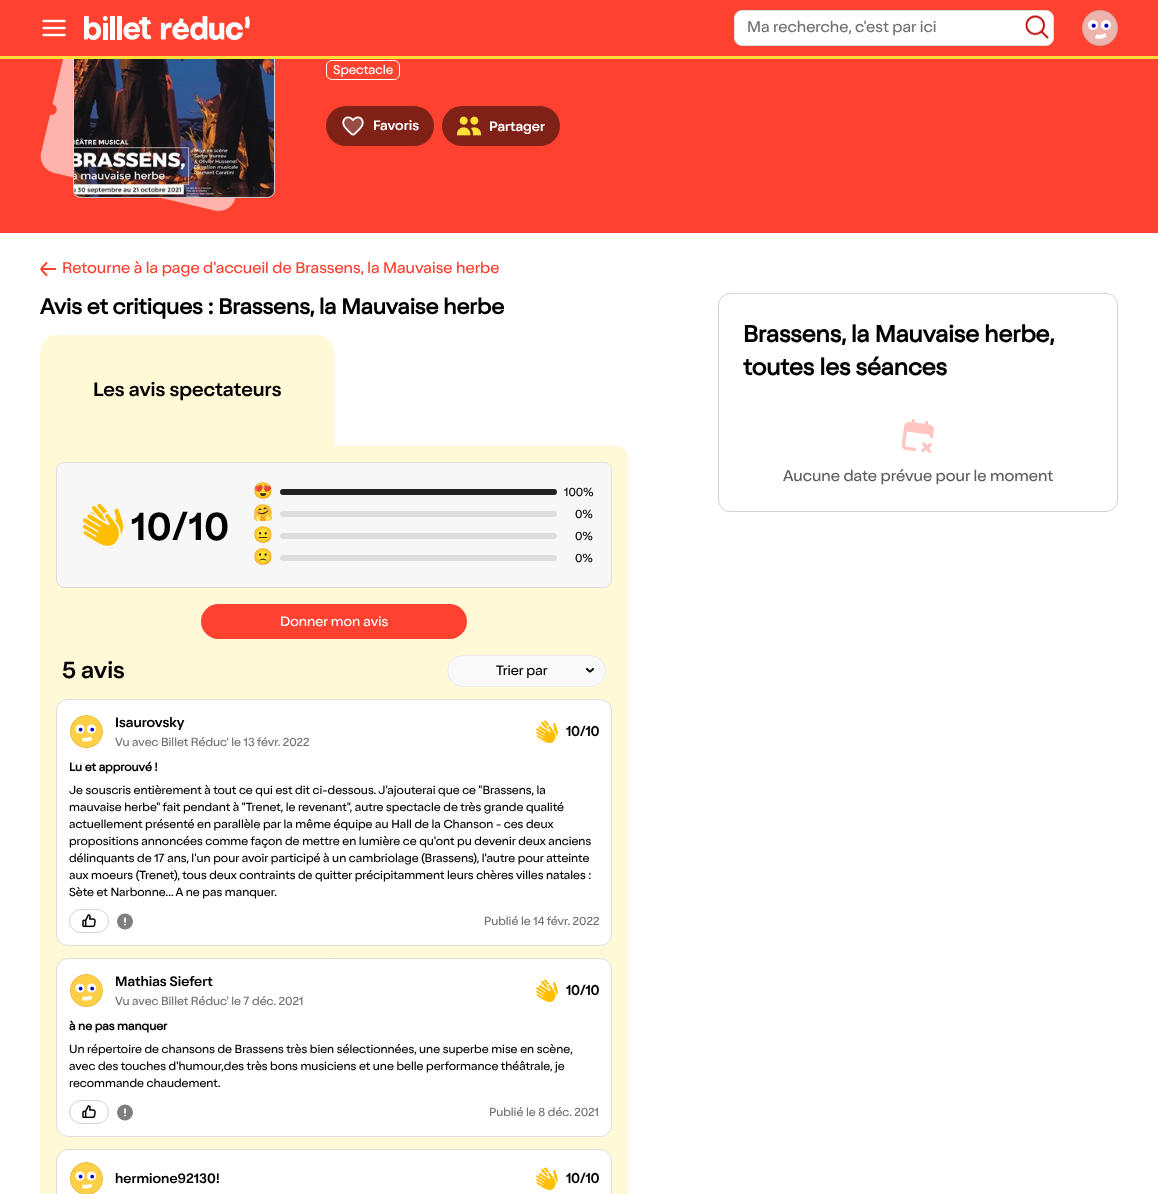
(async () => {
  const canvas = document.querySelector("canvas");
  canvas.width = 1158;
  canvas.height = 1194;
  const ctx = canvas.getContext("2d");
  ctx.miterLimit = 4;
  ctx.fontKerning = "normal";
  async function loadImage(src) {
    const img = new Image();
    img.src = src;
    await img.decode();
    return img;
  }
  let path;

  ctx.fillStyle = "#ffffff";
  ctx.fillRect(0, 0, 1158, 1194);
  ctx.fillStyle = "#ff4130";
  ctx.fillRect(0, 59, 1158, 174);
  ctx.drawImage(await loadImage("img/6.png"), 40, 59, 196, 152);
  ctx.fillStyle = "#ffffff";
  ctx.beginPath();
  ctx.roundRect(73, -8, 202, 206, 8);
  ctx.fill();
  ctx.beginPath();
  ctx.roundRect(73.5, -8.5, 201, 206, 7.5);
  ctx.strokeStyle = "rgba(0, 0, 0, 0.1)";
  ctx.stroke();
  ctx.fillStyle = "#ff4130";
  ctx.fillRect(0, 0, 1158, 56);
  ctx.fillStyle = "#ffe039";
  ctx.fillRect(0, 56, 1158, 3);
  ctx.drawImage(await loadImage("img/1.png"), 42, 19, 24, 18);
  ctx.drawImage(await loadImage("img/2.png"), 84, 16, 166, 24);
  ctx.fillStyle = "#ffffff";
  ctx.beginPath();
  ctx.roundRect(734.5, 10.5, 319, 35, 7.5);
  ctx.fill();
  ctx.strokeStyle = "#dddddd";
  ctx.stroke();
  ctx.drawImage(await loadImage("img/3.png"), 1025, 14, 24, 25);
  ctx.drawImage(await loadImage("img/4.png"), 1082, 10, 36, 36);
  ctx.drawImage(await loadImage("img/5.png"), 73, 59, 202, 139);
  ctx.beginPath();
  ctx.roundRect(326.5, 60.5, 73, 19, 5.5);
  ctx.strokeStyle = "#ffffff";
  ctx.stroke();
  ctx.fillStyle = "#802118";
  ctx.beginPath();
  ctx.roundRect(326, 106, 108, 40, 20);
  ctx.fill();
  ctx.drawImage(await loadImage("img/7.png"), 342, 116, 22, 20);
  ctx.beginPath();
  ctx.roundRect(442, 106, 118, 40, 20);
  ctx.fill();
  ctx.drawImage(await loadImage("img/8.png"), 457, 116, 24, 20);
  ctx.save();
  ctx.beginPath();
  ctx.rect(40, 262, 16, 15);
  ctx.clip();
  path = new Path2D("M46.5 263C39.5 270.5 39.5 267.5 46.5 275M42 269H57");
  ctx.strokeStyle = "#ff4130";
  ctx.lineWidth = 2;
  ctx.lineCap = "round";
  ctx.lineJoin = "round";
  ctx.stroke(path);
  ctx.restore();
  ctx.fillStyle = "#fff9d7";
  ctx.beginPath();
  ctx.roundRect(40, 335, 294, 111, [18, 18, 0, 0]);
  ctx.fill();
  path = new Path2D("M40 446H616C622.5 446 628 451.5 628 458V1194C628 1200.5 622.5 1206 616 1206H52C45.5 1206 40 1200.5 40 1194Z");
  ctx.fill(path);
  ctx.fillStyle = "#f7f7f7";
  ctx.beginPath();
  ctx.roundRect(56.5, 462.5, 555, 125, 7.5);
  ctx.fill();
  ctx.strokeStyle = "#dddddd";
  ctx.stroke();
  ctx.drawImage(await loadImage("img/9.png"), 82, 503, 42, 43);
  ctx.fillStyle = "#222222";
  ctx.beginPath();
  ctx.roundRect(280, 489, 277, 6, 3);
  ctx.fill();
  ctx.fillStyle = "#dddddd";
  ctx.beginPath();
  ctx.roundRect(280, 511, 277, 6, 3);
  ctx.fill();
  ctx.beginPath();
  ctx.roundRect(280, 533, 277, 6, 3);
  ctx.fill();
  ctx.beginPath();
  ctx.roundRect(280, 555, 277, 6, 3);
  ctx.fill();
  ctx.fillStyle = "#ff4130";
  ctx.beginPath();
  ctx.roundRect(201, 604, 266, 35, 17.5);
  ctx.fill();
  ctx.fillStyle = "#f9f9f9";
  ctx.beginPath();
  ctx.roundRect(447, 655, 159, 32, 16);
  ctx.fill();
  path = new Path2D("M587 669C590.5 672.5 589.5 672.5 593 669");
  ctx.strokeStyle = "#000000";
  ctx.lineWidth = 2;
  ctx.lineCap = "round";
  ctx.lineJoin = "round";
  ctx.stroke(path);
  ctx.beginPath();
  ctx.roundRect(447.5, 655.5, 158, 31, 15.5);
  ctx.strokeStyle = "#ebebeb";
  ctx.lineWidth = 1;
  ctx.lineJoin = "miter";
  ctx.stroke();
  ctx.fillStyle = "#ffffff";
  ctx.beginPath();
  ctx.roundRect(56.5, 699.5, 555, 246, 11.5);
  ctx.fill();
  ctx.strokeStyle = "#dddddd";
  ctx.stroke();
  ctx.drawImage(await loadImage("img/10.png"), 70, 715, 33, 33);
  ctx.drawImage(await loadImage("img/11.png"), 536, 720, 22, 23);
  ctx.beginPath();
  ctx.roundRect(69.5, 909.5, 39, 23, 11.5);
  ctx.strokeStyle = "#d3d3d3";
  ctx.stroke();
  ctx.drawImage(await loadImage("img/12.png"), 117, 913, 16, 17);
  ctx.drawImage(await loadImage("img/13.png"), 82, 914, 14, 14);
  ctx.beginPath();
  ctx.roundRect(56.5, 958.5, 555, 178, 11.5);
  ctx.fill();
  ctx.strokeStyle = "#dddddd";
  ctx.stroke();
  ctx.drawImage(await loadImage("img/10.png"), 70, 974, 33, 33);
  ctx.drawImage(await loadImage("img/11.png"), 536, 979, 22, 23);
  ctx.beginPath();
  ctx.roundRect(69.5, 1100.5, 39, 23, 11.5);
  ctx.strokeStyle = "#d3d3d3";
  ctx.stroke();
  ctx.drawImage(await loadImage("img/12.png"), 117, 1104, 16, 17);
  ctx.drawImage(await loadImage("img/13.png"), 82, 1105, 14, 14);
  ctx.beginPath();
  ctx.roundRect(56.5, 1149.5, 555, 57, 11.5);
  ctx.fill();
  ctx.strokeStyle = "#dddddd";
  ctx.stroke();
  ctx.drawImage(await loadImage("img/14.png"), 70, 1162, 33, 32);
  ctx.drawImage(await loadImage("img/11.png"), 536, 1167, 22, 23);
  ctx.beginPath();
  ctx.roundRect(718.5, 293.5, 399, 218, 11.5);
  ctx.strokeStyle = "#d3d3d3";
  ctx.stroke();
  ctx.drawImage(await loadImage("img/15.png"), 901, 419, 33, 34);
  ctx.font = "16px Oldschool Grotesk";
  ctx.fillStyle = "#717171";
  ctx.fillText("Ma recherche, c'est par ici", 747, 32);
  ctx.font = "13px Oldschool Grotesk";
  ctx.fillStyle = "#ffffff";
  ctx.fillText("Spectacle", 333, 74);
  ctx.font = "500 14px Oldschool Grotesk";
  ctx.fillText("Favoris", 373, 130);
  ctx.fillText("Partager", 489, 131);
  ctx.font = "16px Oldschool Grotesk";
  ctx.fillStyle = "#ff4130";
  ctx.fillText("Retourne à la page d'accueil de Brassens, la Mauvaise herbe", 62, 273);
  ctx.font = "bold 22.4px Oldschool Grotesk";
  ctx.fillStyle = "#000000";
  ctx.fillText("Avis et critiques : Brassens, la Mauvaise herbe", 40, 314);
  ctx.font = "500 20px Oldschool Grotesk";
  ctx.fillText("Les avis spectateurs", 93, 396);
  ctx.font = "500 40px Oldschool Grotesk";
  ctx.fillText("10/10", 131, 540);
  ctx.font = "16px Noto Color Emoji";
  ctx.fillText("😍", 253, 496);
  ctx.font = "12px Oldschool Grotesk";
  ctx.fillText("100%", 564, 496);
  ctx.font = "16px Noto Color Emoji";
  ctx.fillText("🤗", 253, 518);
  ctx.font = "12px Oldschool Grotesk";
  ctx.fillText("0%", 575, 518);
  ctx.font = "16px Noto Color Emoji";
  ctx.fillText("😐", 253, 540);
  ctx.font = "12px Oldschool Grotesk";
  ctx.fillText("0%", 575, 540);
  ctx.font = "16px Noto Color Emoji";
  ctx.fillText("🙁", 253, 562);
  ctx.font = "12px Oldschool Grotesk";
  ctx.fillText("0%", 575, 562);
  ctx.font = "14px Oldschool Grotesk";
  ctx.fillStyle = "#ffffff";
  ctx.fillText("Donner mon avis", 280, 626);
  ctx.font = "500 24px Oldschool Grotesk";
  ctx.fillStyle = "#000000";
  ctx.fillText("5 avis", 62, 678);
  ctx.font = "14px Oldschool Grotesk";
  ctx.fillText("Trier par", 496, 675);
  ctx.font = "500 14px Oldschool Grotesk";
  ctx.fillText("Isaurovsky", 115, 727);
  ctx.font = "12px Oldschool Grotesk";
  ctx.fillStyle = "#717171";
  ctx.fillText("Vu avec Billet Réduc' le 13 févr. 2022", 115, 746);
  ctx.font = "bold 14px Oldschool Grotesk";
  ctx.fillStyle = "#000000";
  ctx.fillText("10/10", 566, 736);
  ctx.font = "bold 12px Oldschool Grotesk";
  ctx.fillText("Lu et approuvé !", 69, 771);
  ctx.font = "12px Oldschool Grotesk";
  for (const [text, x, y] of [
    ["Je souscris entièrement à tout ce qui est dit ci-dessous. J'ajouterai que ce \"Brassens, la", 69, 794],
    ["mauvaise herbe\" fait pendant à \"Trenet, le revenant\", autre spectacle de très grande qualité", 69, 811],
    ["actuellement présenté en parallèle par la même équipe au Hall de la Chanson - ces deux", 69, 828],
    ["propositions annoncées comme façon de mettre en lumière ce qu'ont pu devenir deux anciens", 69, 845],
    ["délinquants de 17 ans, l'un pour avoir participé à un cambriolage (Brassens), l'autre pour atteinte", 69, 862],
    ["aux moeurs (Trenet), tous deux contraints de quitter précipitamment leurs chères villes natales :", 69, 879],
    ["Sète et Narbonne... A ne pas manquer.", 69, 896],
  ]) {
    ctx.fillText(text, x, y);
  }
  ctx.fillStyle = "#717171";
  ctx.fillText("Publié le 14 févr. 2022", 484, 925);
  ctx.font = "500 14px Oldschool Grotesk";
  ctx.fillStyle = "#000000";
  ctx.fillText("Mathias Siefert", 115, 986);
  ctx.font = "12px Oldschool Grotesk";
  ctx.fillStyle = "#717171";
  ctx.fillText("Vu avec Billet Réduc' le 7 déc. 2021", 115, 1005);
  ctx.font = "bold 14px Oldschool Grotesk";
  ctx.fillStyle = "#000000";
  ctx.fillText("10/10", 566, 995);
  ctx.font = "bold 12px Oldschool Grotesk";
  ctx.fillText("à ne pas manquer", 69, 1030);
  ctx.font = "12px Oldschool Grotesk";
  for (const [text, x, y] of [
    ["Un répertoire de chansons de Brassens très bien sélectionnées, une superbe mise en scène,", 69, 1053],
    ["avec des touches d'humour,des très bons musiciens et une belle performance théâtrale, je", 69, 1070],
    ["recommande chaudement.", 69, 1087],
  ]) {
    ctx.fillText(text, x, y);
  }
  ctx.fillStyle = "#717171";
  ctx.fillText("Publié le 8 déc. 2021", 489, 1116);
  ctx.font = "500 14px Oldschool Grotesk";
  ctx.fillStyle = "#000000";
  ctx.fillText("hermione92130!", 115, 1183);
  ctx.font = "bold 14px Oldschool Grotesk";
  ctx.fillText("10/10", 566, 1183);
  ctx.font = "bold 24px Oldschool Grotesk";
  ctx.fillText("Brassens, la Mauvaise herbe,", 743, 342);
  ctx.fillText("toutes les séances", 743, 375);
  ctx.font = "16px Oldschool Grotesk";
  ctx.fillStyle = "#5e5e5e";
  ctx.fillText("Aucune date prévue pour le moment", 783, 481);
})();
